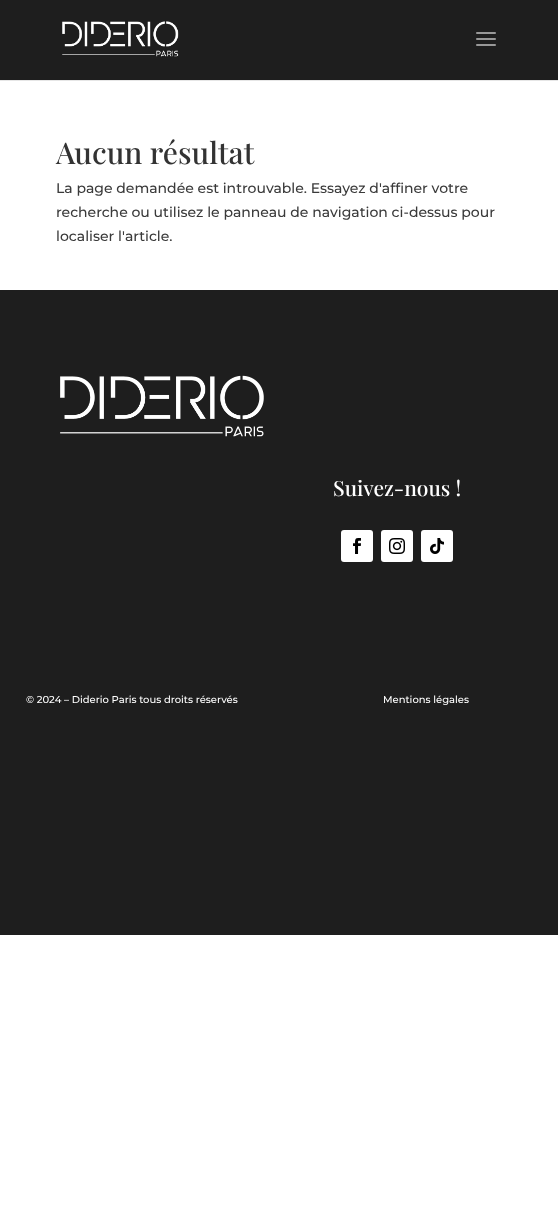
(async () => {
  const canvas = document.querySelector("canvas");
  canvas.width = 558;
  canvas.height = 1232;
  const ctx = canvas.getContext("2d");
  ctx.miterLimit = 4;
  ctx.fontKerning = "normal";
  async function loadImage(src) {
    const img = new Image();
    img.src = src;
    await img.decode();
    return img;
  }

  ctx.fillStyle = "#ffffff";
  ctx.fillRect(0, 0, 558, 1232);
  ctx.fillStyle = "#e6e6e6";
  ctx.fillRect(0, 80, 558, 1);
  ctx.fillStyle = "#1e1e1e";
  ctx.fillRect(0, 0, 558, 80);
  ctx.drawImage(await loadImage("img/1.png"), 62, 21, 117, 36);
  ctx.drawImage(await loadImage("img/2.png"), 476, 32, 20, 14);
  ctx.fillRect(0, 290, 558, 645);
  ctx.drawImage(await loadImage("img/3.png"), 60, 375, 204, 62);
  ctx.fillStyle = "#ffffff";
  ctx.beginPath();
  ctx.roundRect(341, 530, 32, 32, 3);
  ctx.fill();
  ctx.drawImage(await loadImage("img/4.png"), 353, 538, 8, 16);
  ctx.beginPath();
  ctx.roundRect(381, 530, 32, 32, 3);
  ctx.fill();
  ctx.drawImage(await loadImage("img/5.png"), 389, 538, 16, 16);
  ctx.beginPath();
  ctx.roundRect(421, 530, 32, 32, 3);
  ctx.fill();
  ctx.drawImage(await loadImage("img/6.png"), 430, 538, 14, 16);
  ctx.font = "500 30px Playfair Display";
  ctx.fillStyle = "#333333";
  ctx.fillText("Aucun résultat", 56, 164);
  ctx.font = "500 14px Montserrat";
  ctx.fillStyle = "#3a3a3a";
  for (const [text, x, y] of [
    ["La page demandée est introuvable. Essayez d'affiner votre", 56, 193],
    ["recherche ou utilisez le panneau de navigation ci-dessus pour", 56, 217],
    ["localiser l'article.", 56, 241],
  ]) {
    ctx.fillText(text, x, y);
  }
  ctx.font = "500 21px Playfair Display";
  ctx.fillStyle = "#ffffff";
  ctx.fillText("Suivez-nous !", 333, 496);
  ctx.font = "500 10px Montserrat";
  ctx.fillText("© 2024 – Diderio Paris tous droits réservés", 26, 703);
  ctx.fillText("Mentions légales", 383, 703);
})();
